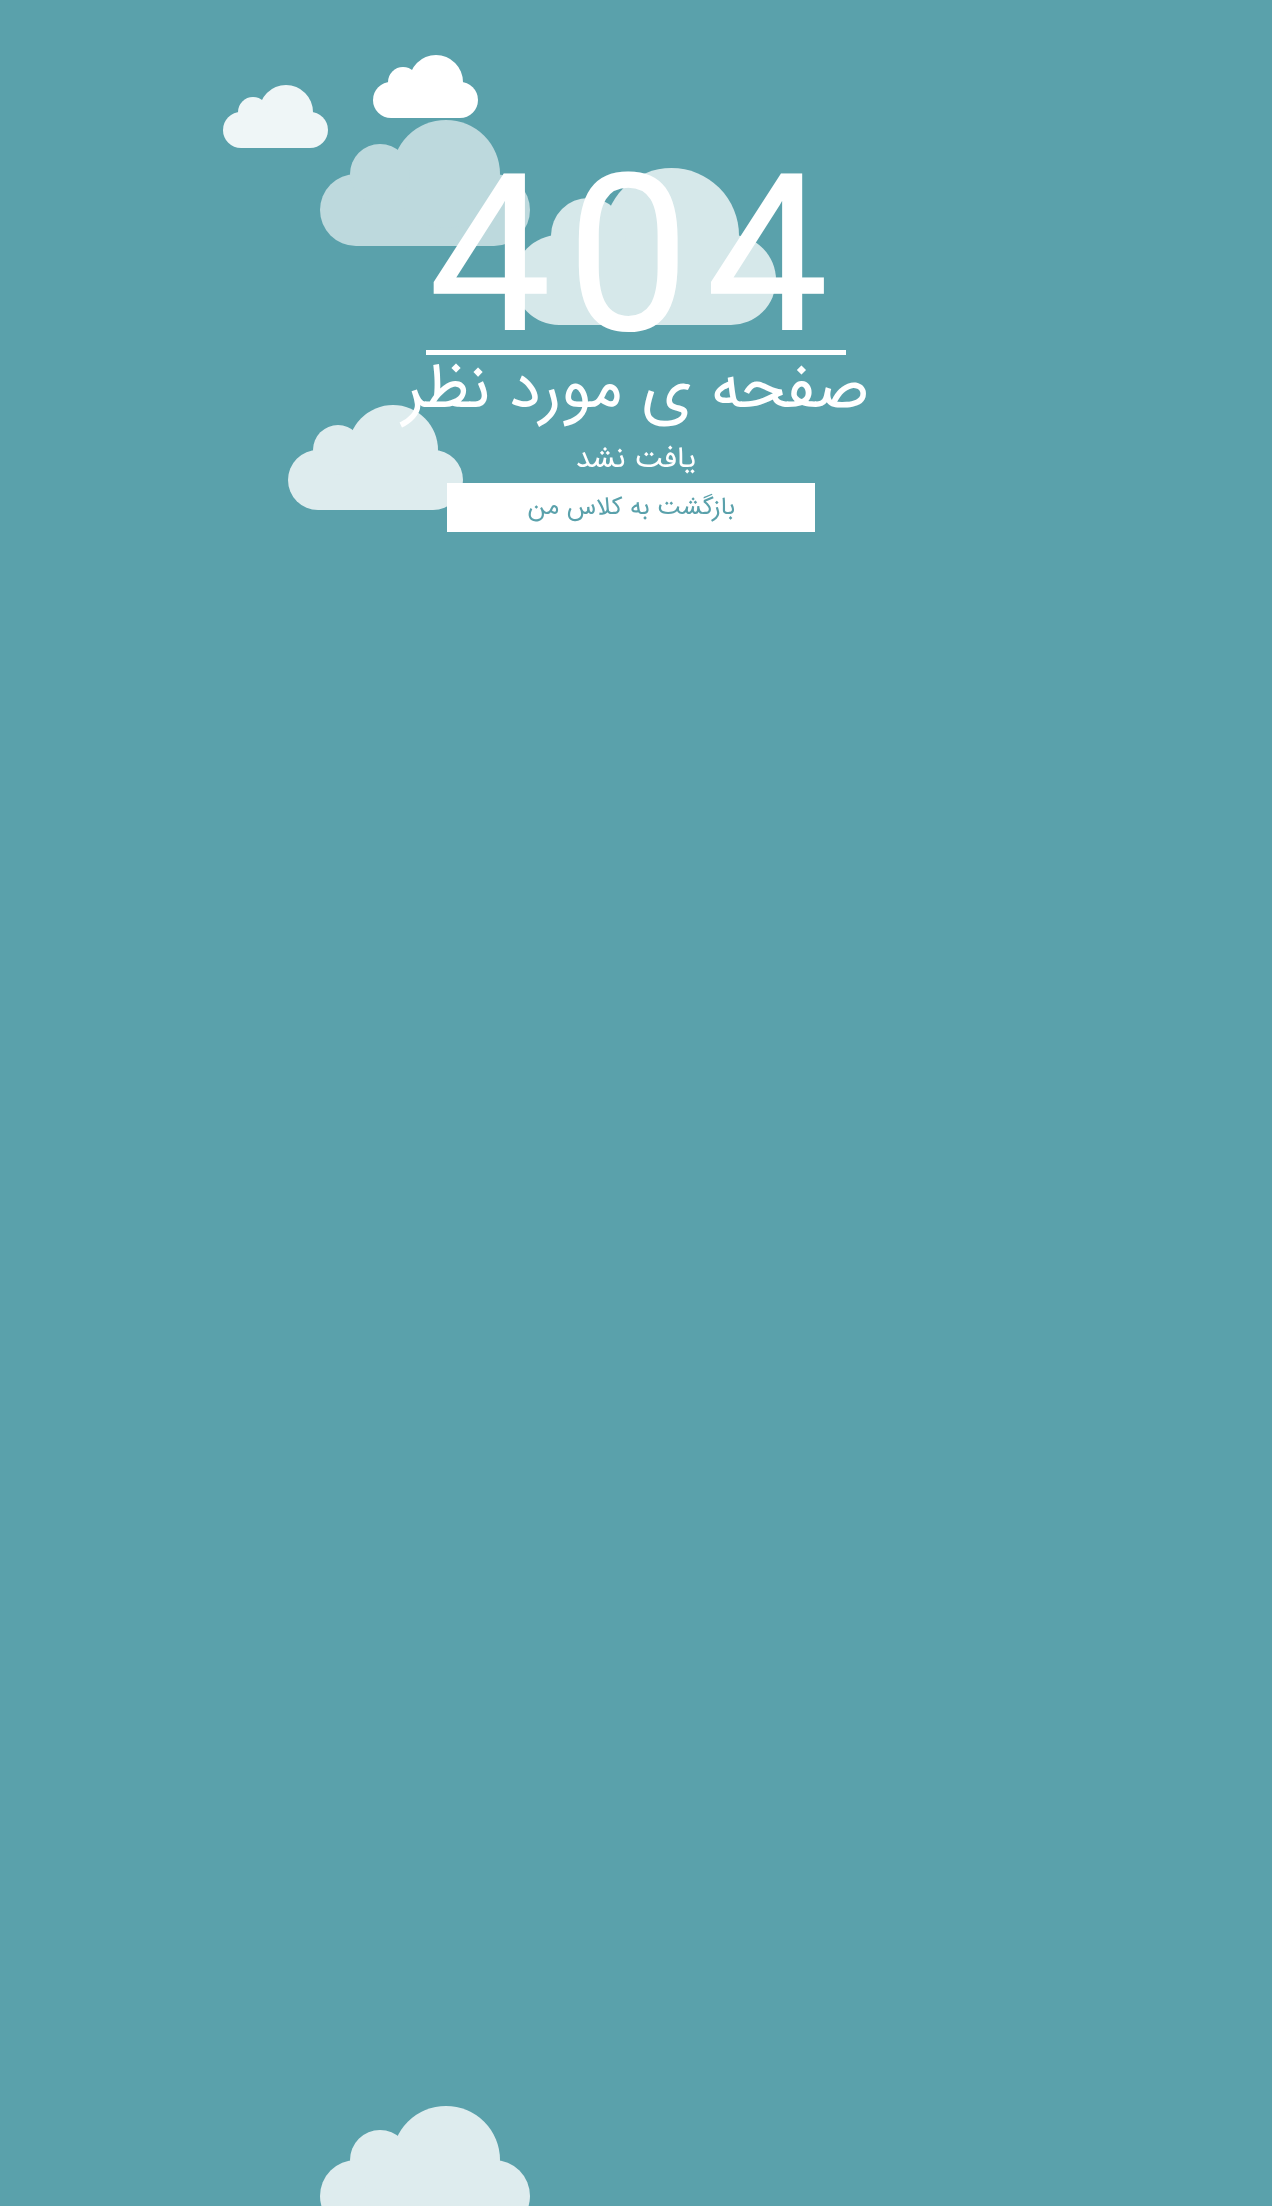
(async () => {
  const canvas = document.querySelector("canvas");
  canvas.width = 1272;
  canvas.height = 2206;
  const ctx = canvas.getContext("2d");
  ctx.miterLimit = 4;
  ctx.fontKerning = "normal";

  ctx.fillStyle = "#5aa1ab";
  ctx.fillRect(0, 0, 1272, 2206);
  ctx.fillStyle = "#ffffff";
  ctx.beginPath();
  ctx.roundRect(373, 82, 105, 36, 18);
  ctx.fill();
  ctx.beginPath();
  ctx.arc(436, 82, 27, 0, Math.PI * 2);
  ctx.fill();
  ctx.beginPath();
  ctx.arc(403, 82, 15, 0, Math.PI * 2);
  ctx.fill();
  ctx.fillStyle = "#eff6f7";
  ctx.beginPath();
  ctx.roundRect(223, 112, 105, 36, 18);
  ctx.fill();
  ctx.beginPath();
  ctx.arc(286, 112, 27, 0, Math.PI * 2);
  ctx.fill();
  ctx.beginPath();
  ctx.arc(253, 112, 15, 0, Math.PI * 2);
  ctx.fill();
  ctx.fillStyle = "#bdd9dd";
  ctx.beginPath();
  ctx.roundRect(320, 174, 210, 72, 36);
  ctx.fill();
  ctx.fillStyle = "#d6e8ea";
  ctx.beginPath();
  ctx.roundRect(514, 235, 262, 90, 45);
  ctx.fill();
  ctx.beginPath();
  ctx.arc(671.5, 235.5, 67.5, 0, Math.PI * 2);
  ctx.fill();
  ctx.beginPath();
  ctx.arc(588.5, 235.5, 37.5, 0, Math.PI * 2);
  ctx.fill();
  ctx.fillStyle = "#bdd9dd";
  ctx.beginPath();
  ctx.arc(446, 174, 54, 0, Math.PI * 2);
  ctx.fill();
  ctx.beginPath();
  ctx.arc(380, 174, 30, 0, Math.PI * 2);
  ctx.fill();
  ctx.fillStyle = "#deecee";
  ctx.beginPath();
  ctx.roundRect(288, 450, 175, 60, 30);
  ctx.fill();
  ctx.beginPath();
  ctx.arc(393, 450, 45, 0, Math.PI * 2);
  ctx.fill();
  ctx.beginPath();
  ctx.arc(338, 450, 25, 0, Math.PI * 2);
  ctx.fill();
  ctx.beginPath();
  ctx.roundRect(320, 2160, 210, 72, 36);
  ctx.fill();
  ctx.beginPath();
  ctx.arc(446, 2160, 54, 0, Math.PI * 2);
  ctx.fill();
  ctx.beginPath();
  ctx.arc(380, 2160, 30, 0, Math.PI * 2);
  ctx.fill();
  ctx.fillStyle = "#ffffff";
  ctx.fillRect(426, 350, 420, 5);
  ctx.fillRect(447, 483, 368, 49);
  ctx.letterSpacing = "15px";
  ctx.font = "220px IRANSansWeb";
  ctx.fillText("404", 428, 330);
  ctx.letterSpacing = "0px";
  ctx.direction = "rtl";
  ctx.font = "64px IRANSansWeb";
  ctx.fillText("صفحه ی مورد نظر", 869, 407);
  ctx.font = "30px IRANSansWeb";
  ctx.fillText("یافت نشد", 696, 467);
  ctx.font = "25px IRANSansWeb";
  ctx.fillStyle = "#5aa1ab";
  ctx.fillText("بازگشت به کلاس من", 735, 514);
})();
